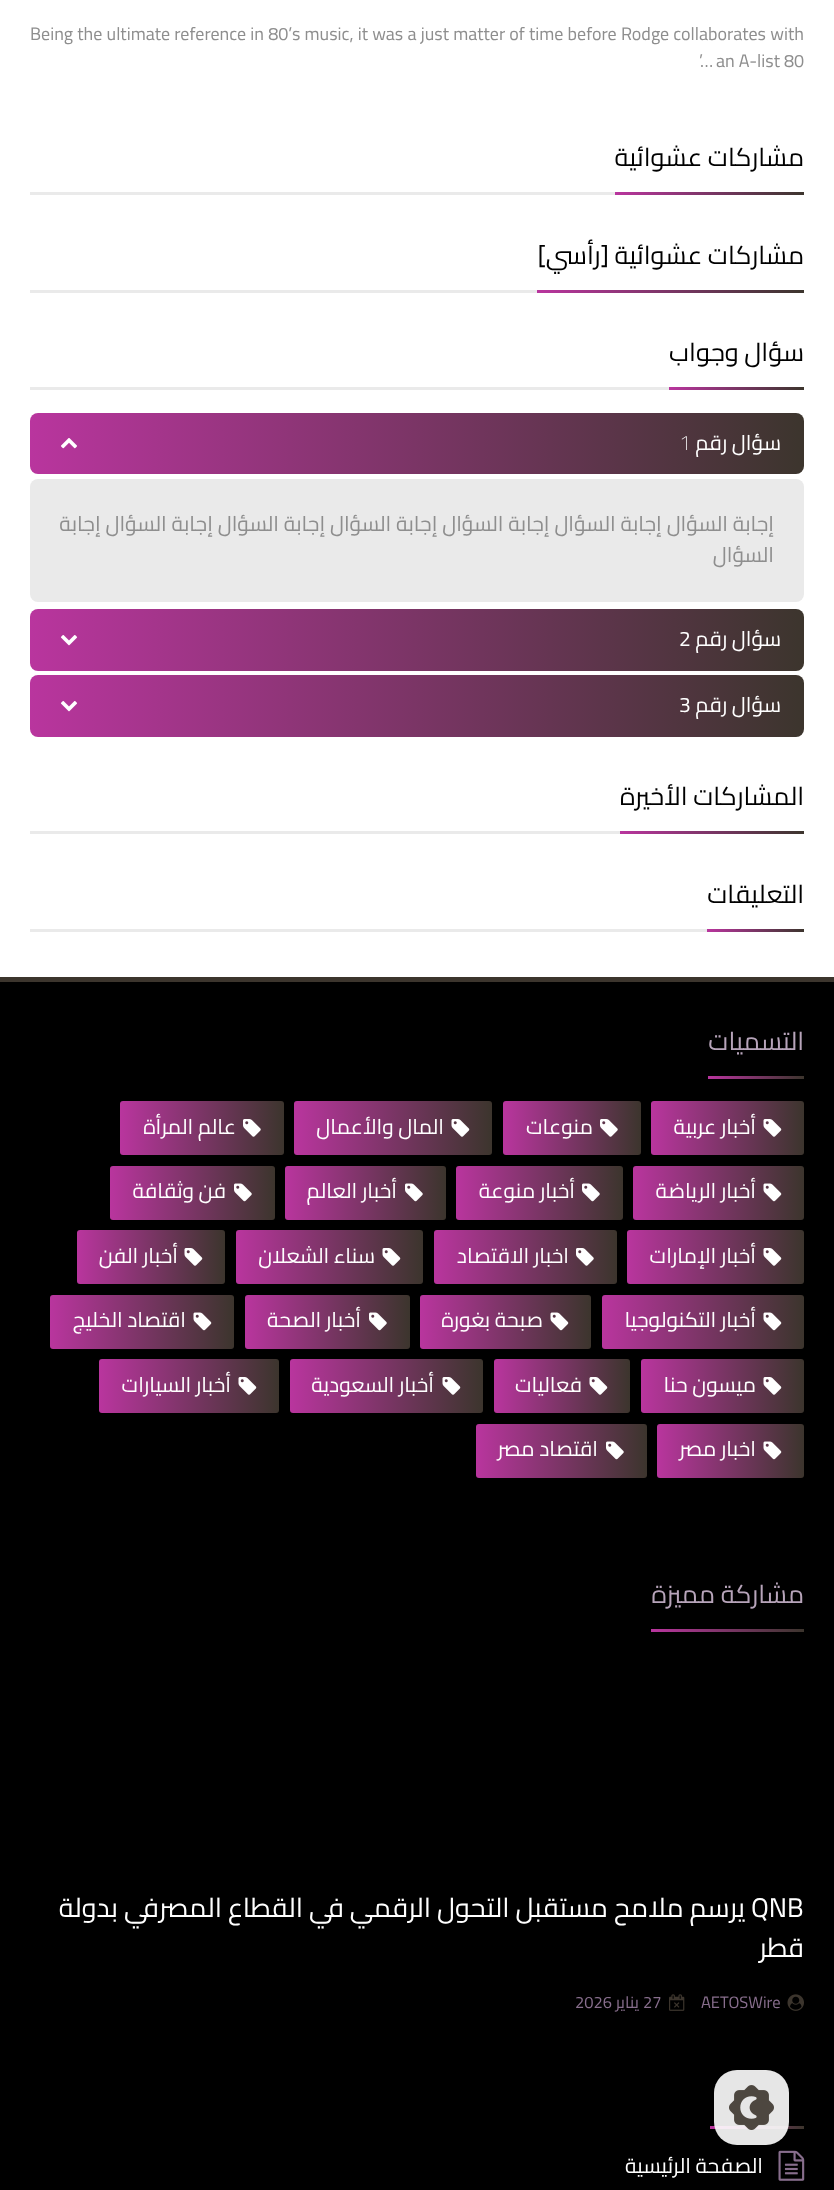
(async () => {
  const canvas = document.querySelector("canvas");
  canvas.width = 834;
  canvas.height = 2190;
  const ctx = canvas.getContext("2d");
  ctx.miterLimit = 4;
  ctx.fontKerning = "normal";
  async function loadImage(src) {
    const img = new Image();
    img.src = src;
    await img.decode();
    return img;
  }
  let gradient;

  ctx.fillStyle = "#ffffff";
  ctx.fillRect(0, 0, 834, 2190);
  ctx.fillStyle = "#eaeaea";
  ctx.fillRect(30, 192, 585, 3);
  gradient = ctx.createLinearGradient(804, 194, 615, 194);
  gradient.addColorStop(0, "#3c352d");
  gradient.addColorStop(1, "#b9359e");
  ctx.fillStyle = gradient;
  ctx.fillRect(615, 192, 189, 3);
  ctx.fillStyle = "#eaeaea";
  ctx.fillRect(30, 290, 507, 3);
  gradient = ctx.createLinearGradient(804, 291, 537, 291);
  gradient.addColorStop(0, "#3c352d");
  gradient.addColorStop(1, "#b9359e");
  ctx.fillStyle = gradient;
  ctx.fillRect(537, 290, 267, 3);
  ctx.fillStyle = "#eaeaea";
  ctx.fillRect(30, 387, 639, 3);
  gradient = ctx.createLinearGradient(804, 389, 669, 389);
  gradient.addColorStop(0, "#3c352d");
  gradient.addColorStop(1, "#b9359e");
  ctx.fillStyle = gradient;
  ctx.fillRect(669, 387, 135, 3);
  gradient = ctx.createLinearGradient(804, 443, 30, 443);
  gradient.addColorStop(0, "#3c352d");
  gradient.addColorStop(1, "#b9359e");
  ctx.fillStyle = gradient;
  ctx.beginPath();
  ctx.roundRect(30, 413, 774, 61, 8);
  ctx.fill();
  ctx.drawImage(await loadImage("img/1.png"), 61, 438, 16, 11);
  ctx.fillStyle = "#eaeaea";
  ctx.beginPath();
  ctx.roundRect(30, 479, 774, 123, 8);
  ctx.fill();
  gradient = ctx.createLinearGradient(804, 640, 30, 640);
  gradient.addColorStop(0, "#3c352d");
  gradient.addColorStop(1, "#b9359e");
  ctx.fillStyle = gradient;
  ctx.beginPath();
  ctx.roundRect(30, 609, 774, 62, 8);
  ctx.fill();
  ctx.drawImage(await loadImage("img/2.png"), 60, 635, 18, 11);
  gradient = ctx.createLinearGradient(804, 706, 30, 706);
  gradient.addColorStop(0, "#3c352d");
  gradient.addColorStop(1, "#b9359e");
  ctx.fillStyle = gradient;
  ctx.beginPath();
  ctx.roundRect(30, 675, 774, 62, 8);
  ctx.fill();
  ctx.drawImage(await loadImage("img/2.png"), 60, 701, 18, 11);
  ctx.fillStyle = "#eaeaea";
  ctx.fillRect(30, 831, 590, 3);
  gradient = ctx.createLinearGradient(804, 833, 620, 833);
  gradient.addColorStop(0, "#3c352d");
  gradient.addColorStop(1, "#b9359e");
  ctx.fillStyle = gradient;
  ctx.fillRect(620, 831, 184, 3);
  ctx.fillStyle = "#eaeaea";
  ctx.fillRect(30, 929, 677, 3);
  gradient = ctx.createLinearGradient(804, 930, 707, 930);
  gradient.addColorStop(0, "#3c352d");
  gradient.addColorStop(1, "#b9359e");
  ctx.fillStyle = gradient;
  ctx.fillRect(707, 929, 97, 3);
  ctx.fillStyle = "#000000";
  ctx.fillRect(0, 982, 834, 1208);
  ctx.fillStyle = "#3c352d";
  ctx.fillRect(0, 977, 834, 5);
  gradient = ctx.createLinearGradient(804, 1077, 708, 1077);
  gradient.addColorStop(0, "#3c352d");
  gradient.addColorStop(1, "#b9359e");
  ctx.fillStyle = gradient;
  ctx.fillRect(708, 1076, 96, 3);
  gradient = ctx.createLinearGradient(804, 1128, 651, 1128);
  gradient.addColorStop(0, "#3c352d");
  gradient.addColorStop(1, "#b9359e");
  ctx.fillStyle = gradient;
  ctx.beginPath();
  ctx.roundRect(651, 1101, 153, 54, 3);
  ctx.fill();
  ctx.drawImage(await loadImage("img/3.png"), 763, 1119, 19, 18);
  gradient = ctx.createLinearGradient(641, 1128, 503, 1128);
  gradient.addColorStop(0, "#3c352d");
  gradient.addColorStop(1, "#b9359e");
  ctx.fillStyle = gradient;
  ctx.beginPath();
  ctx.roundRect(503, 1101, 138, 54, 3);
  ctx.fill();
  ctx.drawImage(await loadImage("img/4.png"), 600, 1119, 18, 18);
  gradient = ctx.createLinearGradient(492, 1128, 294, 1128);
  gradient.addColorStop(0, "#3c352d");
  gradient.addColorStop(1, "#b9359e");
  ctx.fillStyle = gradient;
  ctx.beginPath();
  ctx.roundRect(294, 1101, 198, 54, 3);
  ctx.fill();
  ctx.drawImage(await loadImage("img/5.png"), 451, 1119, 19, 18);
  gradient = ctx.createLinearGradient(284, 1128, 120, 1128);
  gradient.addColorStop(0, "#3c352d");
  gradient.addColorStop(1, "#b9359e");
  ctx.fillStyle = gradient;
  ctx.beginPath();
  ctx.roundRect(120, 1101, 164, 54, 3);
  ctx.fill();
  ctx.drawImage(await loadImage("img/6.png"), 243, 1119, 18, 18);
  gradient = ctx.createLinearGradient(804, 1193, 633, 1193);
  gradient.addColorStop(0, "#3c352d");
  gradient.addColorStop(1, "#b9359e");
  ctx.fillStyle = gradient;
  ctx.beginPath();
  ctx.roundRect(633, 1166, 171, 54, 3);
  ctx.fill();
  ctx.drawImage(await loadImage("img/7.png"), 763, 1183, 19, 19);
  gradient = ctx.createLinearGradient(623, 1193, 456, 1193);
  gradient.addColorStop(0, "#3c352d");
  gradient.addColorStop(1, "#b9359e");
  ctx.fillStyle = gradient;
  ctx.beginPath();
  ctx.roundRect(456, 1166, 167, 54, 3);
  ctx.fill();
  ctx.drawImage(await loadImage("img/8.png"), 582, 1183, 18, 19);
  gradient = ctx.createLinearGradient(446, 1193, 285, 1193);
  gradient.addColorStop(0, "#3c352d");
  gradient.addColorStop(1, "#b9359e");
  ctx.fillStyle = gradient;
  ctx.beginPath();
  ctx.roundRect(285, 1166, 161, 54, 3);
  ctx.fill();
  ctx.drawImage(await loadImage("img/9.png"), 405, 1183, 18, 19);
  gradient = ctx.createLinearGradient(275, 1193, 110, 1193);
  gradient.addColorStop(0, "#3c352d");
  gradient.addColorStop(1, "#b9359e");
  ctx.fillStyle = gradient;
  ctx.beginPath();
  ctx.roundRect(110, 1166, 165, 54, 3);
  ctx.fill();
  ctx.drawImage(await loadImage("img/10.png"), 234, 1183, 18, 19);
  gradient = ctx.createLinearGradient(804, 1257, 627, 1257);
  gradient.addColorStop(0, "#3c352d");
  gradient.addColorStop(1, "#b9359e");
  ctx.fillStyle = gradient;
  ctx.beginPath();
  ctx.roundRect(627, 1230, 177, 54, 3);
  ctx.fill();
  ctx.drawImage(await loadImage("img/11.png"), 763, 1248, 19, 18);
  gradient = ctx.createLinearGradient(617, 1257, 434, 1257);
  gradient.addColorStop(0, "#3c352d");
  gradient.addColorStop(1, "#b9359e");
  ctx.fillStyle = gradient;
  ctx.beginPath();
  ctx.roundRect(434, 1230, 183, 54, 3);
  ctx.fill();
  ctx.drawImage(await loadImage("img/12.png"), 576, 1248, 18, 18);
  gradient = ctx.createLinearGradient(423, 1257, 236, 1257);
  gradient.addColorStop(0, "#3c352d");
  gradient.addColorStop(1, "#b9359e");
  ctx.fillStyle = gradient;
  ctx.beginPath();
  ctx.roundRect(236, 1230, 187, 54, 3);
  ctx.fill();
  ctx.drawImage(await loadImage("img/13.png"), 382, 1248, 19, 18);
  gradient = ctx.createLinearGradient(225, 1257, 77, 1257);
  gradient.addColorStop(0, "#3c352d");
  gradient.addColorStop(1, "#b9359e");
  ctx.fillStyle = gradient;
  ctx.beginPath();
  ctx.roundRect(77, 1230, 148, 54, 3);
  ctx.fill();
  ctx.drawImage(await loadImage("img/14.png"), 184, 1248, 19, 18);
  gradient = ctx.createLinearGradient(804, 1322, 602, 1322);
  gradient.addColorStop(0, "#3c352d");
  gradient.addColorStop(1, "#b9359e");
  ctx.fillStyle = gradient;
  ctx.beginPath();
  ctx.roundRect(602, 1295, 202, 54, 3);
  ctx.fill();
  ctx.drawImage(await loadImage("img/15.png"), 763, 1312, 19, 19);
  gradient = ctx.createLinearGradient(591, 1322, 420, 1322);
  gradient.addColorStop(0, "#3c352d");
  gradient.addColorStop(1, "#b9359e");
  ctx.fillStyle = gradient;
  ctx.beginPath();
  ctx.roundRect(420, 1295, 171, 54, 3);
  ctx.fill();
  ctx.drawImage(await loadImage("img/7.png"), 550, 1312, 19, 19);
  gradient = ctx.createLinearGradient(410, 1322, 245, 1322);
  gradient.addColorStop(0, "#3c352d");
  gradient.addColorStop(1, "#b9359e");
  ctx.fillStyle = gradient;
  ctx.beginPath();
  ctx.roundRect(245, 1295, 165, 54, 3);
  ctx.fill();
  ctx.drawImage(await loadImage("img/10.png"), 369, 1312, 18, 19);
  gradient = ctx.createLinearGradient(234, 1322, 50, 1322);
  gradient.addColorStop(0, "#3c352d");
  gradient.addColorStop(1, "#b9359e");
  ctx.fillStyle = gradient;
  ctx.beginPath();
  ctx.roundRect(50, 1295, 184, 54, 3);
  ctx.fill();
  ctx.drawImage(await loadImage("img/16.png"), 193, 1312, 19, 19);
  gradient = ctx.createLinearGradient(804, 1386, 641, 1386);
  gradient.addColorStop(0, "#3c352d");
  gradient.addColorStop(1, "#b9359e");
  ctx.fillStyle = gradient;
  ctx.beginPath();
  ctx.roundRect(641, 1359, 163, 54, 3);
  ctx.fill();
  ctx.drawImage(await loadImage("img/17.png"), 763, 1377, 19, 18);
  gradient = ctx.createLinearGradient(630, 1386, 494, 1386);
  gradient.addColorStop(0, "#3c352d");
  gradient.addColorStop(1, "#b9359e");
  ctx.fillStyle = gradient;
  ctx.beginPath();
  ctx.roundRect(494, 1359, 136, 54, 3);
  ctx.fill();
  ctx.drawImage(await loadImage("img/18.png"), 589, 1377, 19, 18);
  gradient = ctx.createLinearGradient(483, 1386, 290, 1386);
  gradient.addColorStop(0, "#3c352d");
  gradient.addColorStop(1, "#b9359e");
  ctx.fillStyle = gradient;
  ctx.beginPath();
  ctx.roundRect(290, 1359, 193, 54, 3);
  ctx.fill();
  ctx.drawImage(await loadImage("img/19.png"), 442, 1377, 19, 18);
  gradient = ctx.createLinearGradient(279, 1386, 99, 1386);
  gradient.addColorStop(0, "#3c352d");
  gradient.addColorStop(1, "#b9359e");
  ctx.fillStyle = gradient;
  ctx.beginPath();
  ctx.roundRect(99, 1359, 180, 54, 3);
  ctx.fill();
  ctx.drawImage(await loadImage("img/20.png"), 238, 1377, 19, 18);
  gradient = ctx.createLinearGradient(804, 1451, 657, 1451);
  gradient.addColorStop(0, "#3c352d");
  gradient.addColorStop(1, "#b9359e");
  ctx.fillStyle = gradient;
  ctx.beginPath();
  ctx.roundRect(657, 1424, 147, 54, 3);
  ctx.fill();
  ctx.drawImage(await loadImage("img/21.png"), 763, 1441, 19, 19);
  gradient = ctx.createLinearGradient(647, 1451, 476, 1451);
  gradient.addColorStop(0, "#3c352d");
  gradient.addColorStop(1, "#b9359e");
  ctx.fillStyle = gradient;
  ctx.beginPath();
  ctx.roundRect(476, 1424, 171, 54, 3);
  ctx.fill();
  ctx.drawImage(await loadImage("img/22.png"), 606, 1441, 18, 19);
  gradient = ctx.createLinearGradient(804, 1631, 651, 1631);
  gradient.addColorStop(0, "#3c352d");
  gradient.addColorStop(1, "#b9359e");
  ctx.fillStyle = gradient;
  ctx.fillRect(651, 1629, 153, 3);
  ctx.drawImage(await loadImage("img/23.png"), 787, 1994, 17, 17);
  ctx.drawImage(await loadImage("img/24.png"), 669, 1994, 16, 17);
  gradient = ctx.createLinearGradient(804, 2127, 710, 2127);
  gradient.addColorStop(0, "#3c352d");
  gradient.addColorStop(1, "#b9359e");
  ctx.fillStyle = gradient;
  ctx.fillRect(710, 2126, 94, 3);
  ctx.drawImage(await loadImage("img/25.png"), 778, 2150, 27, 31);
  ctx.fillStyle = "rgba(255, 255, 255, 0.9)";
  ctx.beginPath();
  ctx.roundRect(714, 2070, 75, 75, 23);
  ctx.fill();
  ctx.drawImage(await loadImage("img/26.png"), 729, 2085, 45, 45);
  ctx.wordSpacing = "0.25px";
  ctx.font = "18px Cairo";
  ctx.fillStyle = "#8e8e8e";
  ctx.fillText("Being the ultimate reference in 80’s music, it was a just matter of time before Rodge collaborates with", 30, 40);
  ctx.wordSpacing = "0px";
  ctx.fillText("an A-list 80", 716, 67);
  ctx.fillText("’…", 699, 67);
  ctx.direction = "rtl";
  ctx.font = "25.5px Cairo";
  ctx.fillStyle = "#000000";
  for (const [text, x, y] of [
    ["مشاركات عشوائية", 804, 166],
    ["مشاركات عشوائية [رأسي]", 804, 264],
    ["سؤال وجواب", 804, 361],
  ]) {
    ctx.fillText(text, x, y);
  }
  ctx.font = "21px Cairo";
  ctx.fillStyle = "#ffffff";
  ctx.fillText("سؤال رقم", 781, 450);
  ctx.direction = "ltr";
  ctx.font = "200 21px Cairo";
  ctx.fillText("1", 679, 450);
  ctx.wordSpacing = "0.25px";
  ctx.direction = "rtl";
  ctx.font = "21px Cairo";
  ctx.fillStyle = "#8e8e8e";
  ctx.fillText("إجابة السؤال إجابة السؤال إجابة السؤال إجابة السؤال إجابة السؤال إجابة السؤال إجابة", 774, 531);
  ctx.wordSpacing = "0px";
  ctx.fillText("السؤال", 774, 562);
  ctx.fillStyle = "#ffffff";
  ctx.fillText("سؤال رقم", 781, 646);
  ctx.direction = "ltr";
  ctx.fillText("2", 679, 646);
  ctx.direction = "rtl";
  ctx.fillText("سؤال رقم", 781, 712);
  ctx.direction = "ltr";
  ctx.fillText("3", 679, 712);
  ctx.direction = "rtl";
  ctx.font = "25.5px Cairo";
  ctx.fillStyle = "#000000";
  ctx.fillText("المشاركات الأخيرة", 804, 805);
  ctx.fillText("التعليقات", 804, 903);
  ctx.fillStyle = "#b7a4ba";
  ctx.fillText("التسميات", 804, 1050);
  ctx.font = "21px Cairo";
  ctx.fillStyle = "#ffffff";
  for (const [text, x, y] of [
    ["أخبار عربية", 756, 1134],
    ["منوعات", 593, 1134],
    ["المال والأعمال", 444, 1134],
    ["عالم المرأة", 236, 1134],
    ["أخبار الرياضة", 756, 1198],
    ["أخبار منوعة", 575, 1198],
    ["أخبار العالم", 397, 1198],
    ["فن وثقافة", 226, 1198],
    ["أخبار الإمارات", 756, 1263],
    ["اخبار الاقتصاد", 569, 1263],
    ["سناء الشعلان", 375, 1263],
    ["أخبار الفن", 178, 1263],
    ["أخبار التكنولوجيا", 756, 1327],
    ["صبحة بغورة", 543, 1327],
    ["أخبار الصحة", 361, 1327],
    ["اقتصاد الخليج", 186, 1327],
    ["ميسون حنا", 756, 1392],
    ["فعاليات", 582, 1392],
    ["أخبار السعودية", 434, 1392],
    ["أخبار السيارات", 231, 1392],
    ["اخبار مصر", 756, 1456],
    ["اقتصاد مصر", 598, 1456],
  ]) {
    ctx.fillText(text, x, y);
  }
  ctx.font = "25.5px Cairo";
  ctx.fillStyle = "#b7a4ba";
  ctx.fillText("مشاركة مميزة", 804, 1603);
  ctx.direction = "ltr";
  ctx.font = "27px Cairo";
  ctx.fillStyle = "#ffffff";
  ctx.fillText("QNB", 751, 1917);
  ctx.direction = "rtl";
  ctx.fillText("يرسم ملامح مستقبل التحول الرقمي في القطاع المصرفي بدولة", 745, 1917);
  ctx.fillText("قطر", 804, 1957);
  ctx.direction = "ltr";
  ctx.font = "16.5px Cairo";
  ctx.fillStyle = "#886e8d";
  ctx.fillText("AETOSWire", 701, 2008);
  ctx.fillText("27", 643, 2008);
  ctx.direction = "rtl";
  ctx.fillText("يناير", 639, 2008);
  ctx.direction = "ltr";
  ctx.fillText("2026", 575, 2008);
  ctx.direction = "rtl";
  ctx.font = "21px Cairo";
  ctx.fillStyle = "#ffffff";
  ctx.fillText("الصفحة الرئيسية", 763, 2173);
})();
